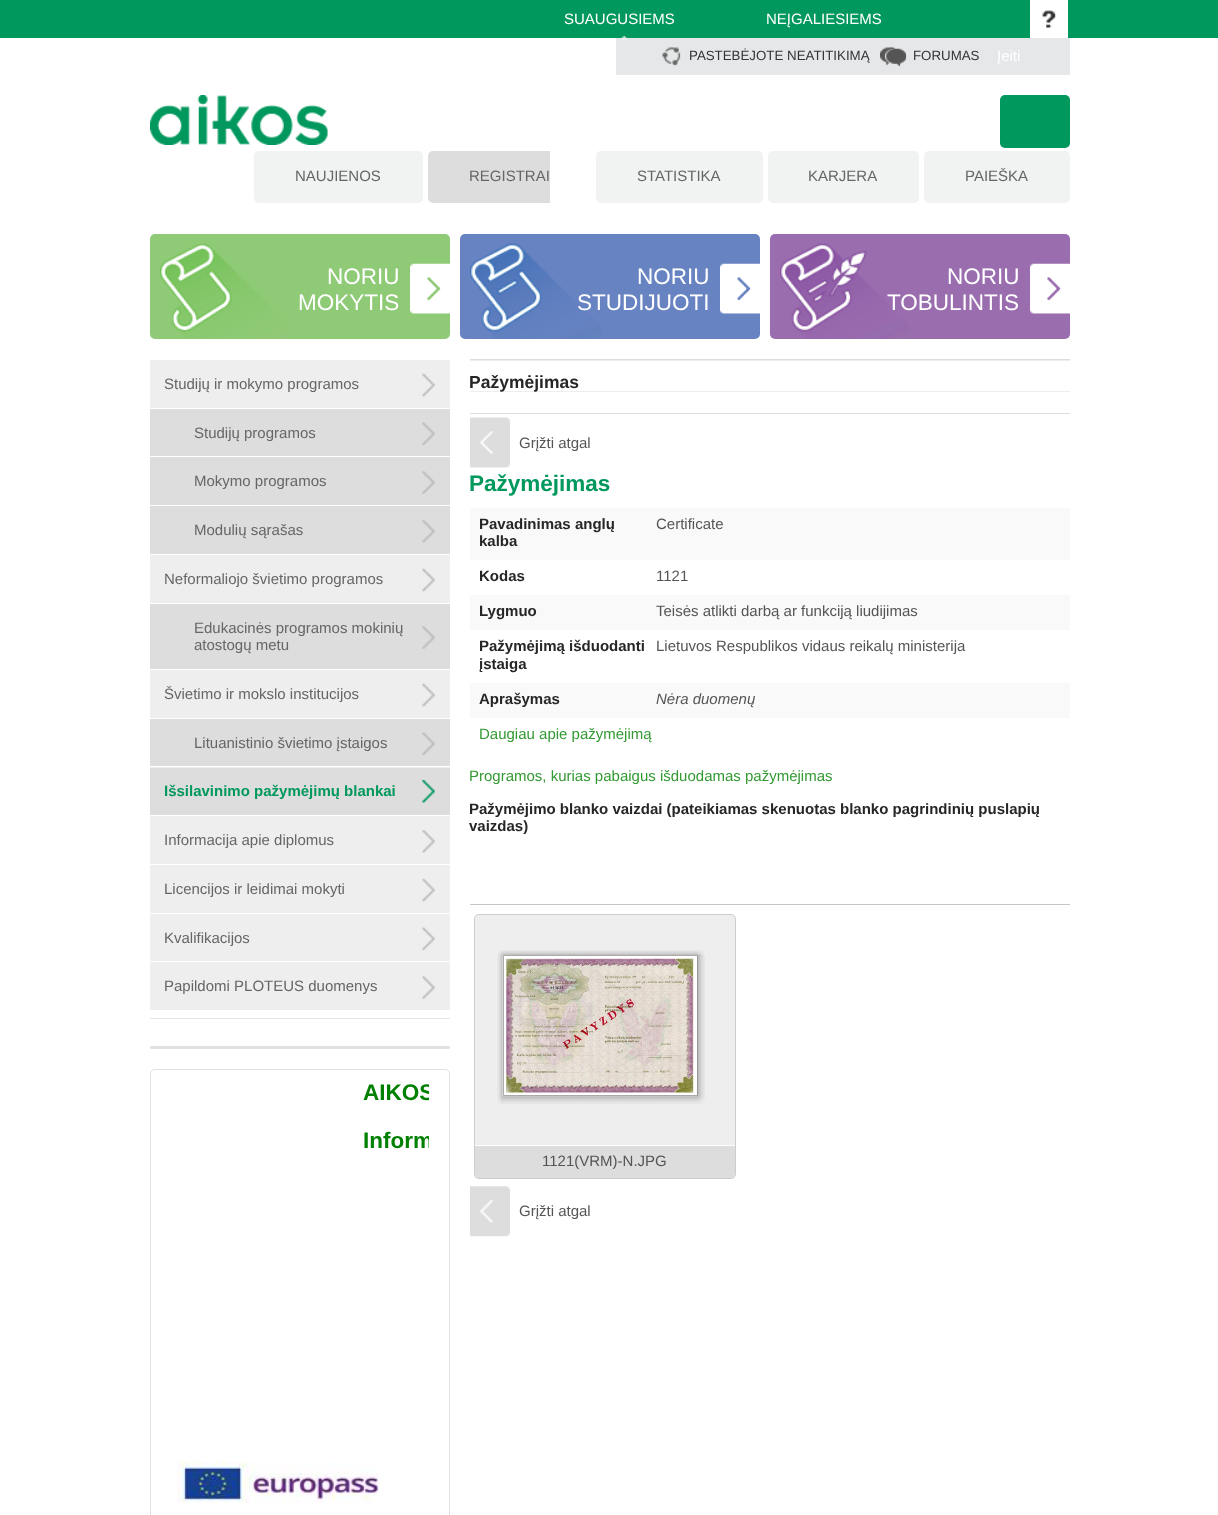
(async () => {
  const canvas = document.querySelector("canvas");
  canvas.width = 1218;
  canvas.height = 1515;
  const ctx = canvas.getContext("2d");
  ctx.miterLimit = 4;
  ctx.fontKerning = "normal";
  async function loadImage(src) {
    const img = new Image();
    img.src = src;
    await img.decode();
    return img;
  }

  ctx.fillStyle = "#ffffff";
  ctx.fillRect(0, 0, 1218, 1515);
  ctx.fillStyle = "#00985c";
  ctx.fillRect(0, 0, 1218, 38);
  ctx.fillStyle = "#e6e7e8";
  ctx.fillRect(616, 38, 454, 37);
  ctx.drawImage(await loadImage("img/1.png"), 620, 35, 8, 5);
  ctx.fillStyle = "#ffffff";
  ctx.fillRect(1030, 0, 38, 38);
  ctx.drawImage(await loadImage("img/2.png"), 1042, 10, 15, 18);
  ctx.drawImage(await loadImage("img/3.png"), 662, 47, 19, 19);
  ctx.drawImage(await loadImage("img/4.png"), 880, 46, 27, 21);
  ctx.drawImage(await loadImage("img/5.png"), 150, 95, 178, 50);
  ctx.fillStyle = "#00985c";
  ctx.beginPath();
  ctx.roundRect(1000, 95, 70, 53, 5);
  ctx.fill();
  ctx.fillStyle = "#f1f2f2";
  ctx.beginPath();
  ctx.roundRect(254, 151, 169, 52, 5);
  ctx.fill();
  ctx.fillStyle = "#dddddd";
  ctx.beginPath();
  ctx.roundRect(428, 151, 122, 52, [5, 0, 0, 5]);
  ctx.fill();
  ctx.fillStyle = "#f1f2f2";
  ctx.beginPath();
  ctx.roundRect(596, 151, 167, 52, 5);
  ctx.fill();
  ctx.beginPath();
  ctx.roundRect(768, 151, 151, 52, 5);
  ctx.fill();
  ctx.beginPath();
  ctx.roundRect(924, 151, 146, 52, 5);
  ctx.fill();
  ctx.fillStyle = "#8fca76";
  ctx.beginPath();
  ctx.roundRect(150, 234, 300, 105, 5);
  ctx.fill();
  ctx.drawImage(await loadImage("img/6.png"), 160, 243, 130, 96);
  ctx.drawImage(await loadImage("img/7.png"), 410, 263, 40, 51);
  ctx.fillStyle = "#6783c2";
  ctx.beginPath();
  ctx.roundRect(460, 234, 300, 105, 5);
  ctx.fill();
  ctx.drawImage(await loadImage("img/8.png"), 470, 243, 133, 96);
  ctx.drawImage(await loadImage("img/9.png"), 720, 263, 40, 51);
  ctx.fillStyle = "#9a6daf";
  ctx.beginPath();
  ctx.roundRect(770, 234, 300, 105, 5);
  ctx.fill();
  ctx.drawImage(await loadImage("img/10.png"), 780, 243, 135, 96);
  ctx.drawImage(await loadImage("img/11.png"), 1030, 263, 40, 51);
  ctx.fillStyle = "#eeeeee";
  ctx.fillRect(150, 360, 300, 48);
  ctx.drawImage(await loadImage("img/12.png"), 422, 373, 13, 24);
  ctx.fillStyle = "#dddddd";
  ctx.fillRect(150, 457, 300, 48);
  ctx.fillRect(150, 409, 300, 47);
  ctx.drawImage(await loadImage("img/13.png"), 422, 422, 13, 23);
  ctx.drawImage(await loadImage("img/14.png"), 422, 471, 13, 23);
  ctx.fillRect(150, 506, 300, 48);
  ctx.drawImage(await loadImage("img/15.png"), 422, 520, 13, 23);
  ctx.fillStyle = "#eeeeee";
  ctx.fillRect(150, 555, 300, 48);
  ctx.drawImage(await loadImage("img/12.png"), 422, 568, 13, 24);
  ctx.fillStyle = "#dddddd";
  ctx.fillRect(150, 604, 300, 65);
  ctx.drawImage(await loadImage("img/14.png"), 422, 626, 13, 23);
  ctx.fillStyle = "#eeeeee";
  ctx.fillRect(150, 670, 300, 48);
  ctx.drawImage(await loadImage("img/12.png"), 422, 683, 13, 24);
  ctx.fillStyle = "#dddddd";
  ctx.fillRect(150, 719, 300, 47);
  ctx.drawImage(await loadImage("img/13.png"), 422, 732, 13, 23);
  ctx.fillStyle = "#eeeeee";
  ctx.fillRect(150, 767, 300, 1);
  ctx.fillStyle = "#dddddd";
  ctx.fillRect(150, 768, 300, 47);
  ctx.drawImage(await loadImage("img/16.png"), 422, 780, 13, 23);
  ctx.fillStyle = "#eeeeee";
  ctx.fillRect(150, 816, 300, 48);
  ctx.drawImage(await loadImage("img/17.png"), 422, 830, 13, 23);
  ctx.fillRect(150, 865, 300, 48);
  ctx.drawImage(await loadImage("img/12.png"), 422, 878, 13, 24);
  ctx.fillRect(150, 914, 300, 47);
  ctx.drawImage(await loadImage("img/18.png"), 422, 927, 13, 23);
  ctx.fillRect(150, 962, 300, 48);
  ctx.drawImage(await loadImage("img/19.png"), 422, 976, 13, 23);
  ctx.fillStyle = "#e5e5e5";
  ctx.fillRect(150, 1018, 300, 1);
  ctx.fillStyle = "#e0e1e2";
  ctx.beginPath();
  ctx.roundRect(150, 1046, 300, 3, 1.5);
  ctx.fill();
  ctx.beginPath();
  ctx.roundRect(150.5, 1069.5, 299, 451, 4.5);
  ctx.strokeStyle = "#e0e1e2";
  ctx.stroke();
  ctx.drawImage(await loadImage("img/20.png"), 177, 1461, 203, 42);
  for (const [x, y, w, h, color] of [
    [470, 359, 600, 1, "#dddddd"],
    [470, 413, 600, 1, "#dddddd"],
    [470, 360, 600, 1, "#eeeeee"],
    [470, 391, 600, 1, "#eeeeee"],
  ]) {
    ctx.fillStyle = color;
    ctx.fillRect(x, y, w, h);
  }
  ctx.drawImage(await loadImage("img/21.png"), 470, 417, 40, 51);
  for (const [x, y, w, h, color] of [
    [470, 508, 600, 52, "#f9f9f9"],
    [470, 595, 600, 35, "#f9f9f9"],
    [470, 683, 600, 35, "#f9f9f9"],
    [470, 904, 600, 1, "#c3c5ca"],
  ]) {
    ctx.fillStyle = color;
    ctx.fillRect(x, y, w, h);
  }
  ctx.fillStyle = "#eeeeee";
  ctx.beginPath();
  ctx.roundRect(474.5, 914.5, 261, 264, 4.5);
  ctx.fill();
  ctx.strokeStyle = "#cdcdcd";
  ctx.stroke();
  ctx.drawImage(await loadImage("img/22.png"), 498, 950, 5, 5);
  ctx.drawImage(await loadImage("img/23.png"), 502, 950, 196, 5);
  ctx.drawImage(await loadImage("img/24.png"), 697, 950, 7, 5);
  ctx.drawImage(await loadImage("img/25.png"), 497, 955, 6, 142);
  ctx.fillStyle = "#ffffff";
  ctx.beginPath();
  ctx.rect(503.5, 955.5, 194, 140);
  ctx.fill();
  ctx.strokeStyle = "#aaaaaa";
  ctx.stroke();
  ctx.drawImage(await loadImage("img/26.png"), 506, 958, 188, 135);
  ctx.drawImage(await loadImage("img/27.png"), 697, 955, 8, 142);
  ctx.drawImage(await loadImage("img/30.png"), 697, 1096, 8, 8);
  ctx.drawImage(await loadImage("img/29.png"), 502, 1096, 196, 8);
  ctx.drawImage(await loadImage("img/28.png"), 497, 1096, 6, 8);
  ctx.fillStyle = "#dddddd";
  ctx.fillRect(475, 1146, 260, 32);
  ctx.fillStyle = "#ffffff";
  ctx.fillRect(475, 1145, 260, 1);
  ctx.drawImage(await loadImage("img/31.png"), 470, 1186, 40, 51);
  ctx.font = "15px Liberation Sans";
  ctx.fillText("SUAUGUSIEMS", 564, 24);
  ctx.fillText("NEĮGALIESIEMS", 766, 24);
  ctx.font = "13.3px Liberation Sans";
  ctx.fillStyle = "#333333";
  ctx.fillText("PASTEBĖJOTE NEATITIKIMĄ", 689, 60);
  ctx.fillText("FORUMAS", 913, 60);
  ctx.font = "15px Liberation Sans";
  ctx.fillStyle = "#ffffff";
  ctx.fillText("Įeiti", 997, 61);
  ctx.fillStyle = "#666666";
  for (const [text, x, y] of [
    ["NAUJIENOS", 295, 181],
    ["REGISTRAI", 469, 181],
    ["STATISTIKA", 637, 181],
    ["KARJERA", 808, 181],
    ["PAIEŠKA", 965, 181],
  ]) {
    ctx.fillText(text, x, y);
  }
  ctx.font = "22.5px Liberation Sans";
  ctx.fillStyle = "#ffffff";
  for (const [text, x, y] of [
    ["NORIU", 327, 284],
    ["MOKYTIS", 298, 310],
    ["NORIU", 637, 284],
    ["STUDIJUOTI", 577, 310],
    ["NORIU", 947, 284],
    ["TOBULINTIS", 887, 310],
  ]) {
    ctx.fillText(text, x, y);
  }
  ctx.font = "15px Liberation Sans";
  ctx.fillStyle = "#666666";
  for (const [text, x, y] of [
    ["Studijų ir mokymo programos", 164, 389],
    ["Studijų programos", 194, 438],
    ["Mokymo programos", 194, 486],
    ["Modulių sąrašas", 194, 535],
    ["Neformaliojo švietimo programos", 164, 584],
    ["Edukacinės programos mokinių", 194, 633],
    ["atostogų metu", 194, 650],
    ["Švietimo ir mokslo institucijos", 164, 699],
    ["Lituanistinio švietimo įstaigos", 194, 748],
  ]) {
    ctx.fillText(text, x, y);
  }
  ctx.font = "bold 15px Liberation Sans";
  ctx.fillStyle = "#00985c";
  ctx.fillText("Išsilavinimo pažymėjimų blankai", 164, 796);
  ctx.font = "15px Liberation Sans";
  ctx.fillStyle = "#666666";
  for (const [text, x, y] of [
    ["Informacija apie diplomus", 164, 845],
    ["Licencijos ir leidimai mokyti", 164, 894],
    ["Kvalifikacijos", 164, 943],
    ["Papildomi PLOTEUS duomenys", 164, 991],
  ]) {
    ctx.fillText(text, x, y);
  }
  ctx.save();
  ctx.beginPath();
  ctx.rect(171, 1080, 258, 26);
  ctx.clip();
  ctx.font = "bold 22.5px Liberation Sans";
  ctx.fillStyle = "#008000";
  ctx.fillText("AIKOS", 363, 1100);
  ctx.restore();
  ctx.save();
  ctx.beginPath();
  ctx.rect(171, 1128, 258, 26);
  ctx.clip();
  ctx.font = "bold 22.5px Liberation Sans";
  ctx.fillStyle = "#008000";
  ctx.fillText("Inform", 363, 1148);
  ctx.restore();
  ctx.font = "bold 17.5px Liberation Sans";
  ctx.fillStyle = "#262626";
  ctx.fillText("Pažymėjimas", 469, 388);
  ctx.font = "15px Liberation Sans";
  ctx.fillStyle = "#555555";
  ctx.fillText("Grįžti atgal", 519, 448);
  ctx.font = "bold 22.5px Liberation Sans";
  ctx.fillStyle = "#00985c";
  ctx.fillText("Pažymėjimas", 469, 491);
  ctx.font = "bold 15px Liberation Sans";
  ctx.fillStyle = "#262626";
  ctx.fillText("Pavadinimas anglų", 479, 529);
  ctx.fillText("kalba", 479, 546);
  ctx.font = "15px Liberation Sans";
  ctx.fillStyle = "#555555";
  ctx.fillText("Certificate", 656, 529);
  ctx.font = "bold 15px Liberation Sans";
  ctx.fillStyle = "#262626";
  ctx.fillText("Kodas", 479, 581);
  ctx.font = "15px Liberation Sans";
  ctx.fillStyle = "#555555";
  ctx.fillText("1121", 656, 581);
  ctx.font = "bold 15px Liberation Sans";
  ctx.fillStyle = "#262626";
  ctx.fillText("Lygmuo", 479, 616);
  ctx.font = "15px Liberation Sans";
  ctx.fillStyle = "#555555";
  ctx.fillText("Teisės atlikti darbą ar funkciją liudijimas", 656, 616);
  ctx.font = "bold 15px Liberation Sans";
  ctx.fillStyle = "#262626";
  ctx.fillText("Pažymėjimą išduodanti", 479, 651);
  ctx.fillText("įstaiga", 479, 669);
  ctx.font = "15px Liberation Sans";
  ctx.fillStyle = "#555555";
  ctx.fillText("Lietuvos Respublikos vidaus reikalų ministerija", 656, 651);
  ctx.font = "bold 15px Liberation Sans";
  ctx.fillStyle = "#262626";
  ctx.fillText("Aprašymas", 479, 704);
  ctx.font = "italic 15px Liberation Sans";
  ctx.fillStyle = "#555555";
  ctx.fillText("Nėra duomenų", 656, 704);
  ctx.font = "15px Liberation Sans";
  ctx.fillStyle = "#339933";
  ctx.fillText("Daugiau apie pažymėjimą", 479, 739);
  ctx.fillText("Programos, kurias pabaigus išduodamas pažymėjimas", 469, 781);
  ctx.font = "bold 15px Liberation Sans";
  ctx.fillStyle = "#262626";
  ctx.fillText("Pažymėjimo blanko vaizdai (pateikiamas skenuotas blanko pagrindinių puslapių", 469, 814);
  ctx.fillText("vaizdas)", 469, 831);
  ctx.font = "15px Liberation Sans";
  ctx.fillStyle = "#555555";
  ctx.fillText("1121(VRM)-N.JPG", 542, 1166);
  ctx.fillText("Grįžti atgal", 519, 1216);
})();
